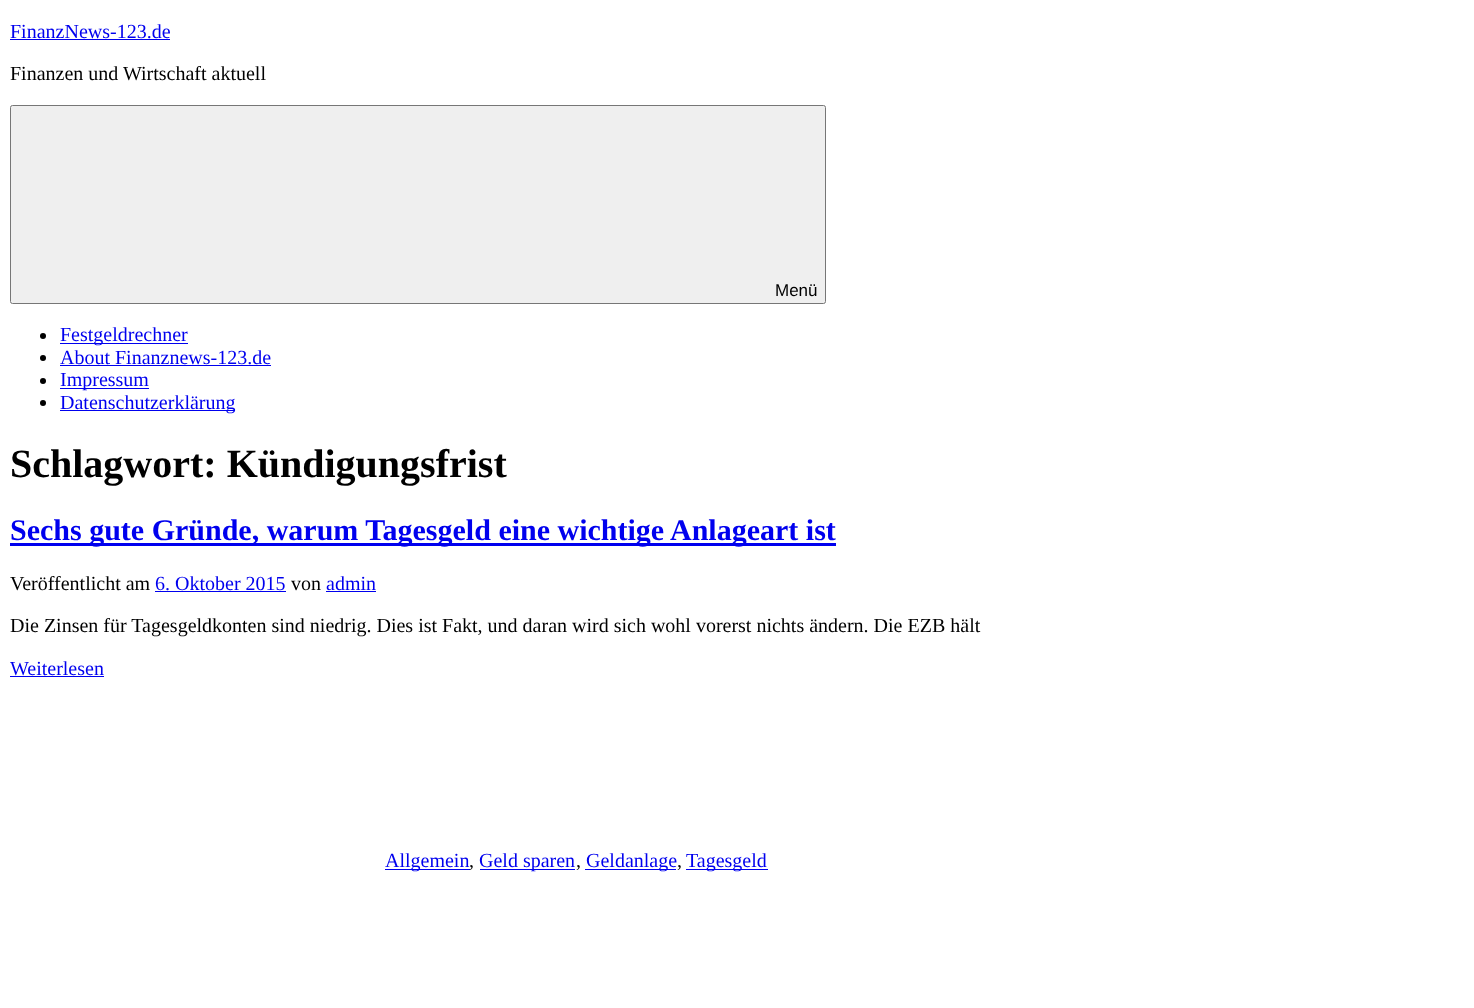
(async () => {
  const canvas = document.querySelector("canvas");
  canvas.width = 1474;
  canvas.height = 1008;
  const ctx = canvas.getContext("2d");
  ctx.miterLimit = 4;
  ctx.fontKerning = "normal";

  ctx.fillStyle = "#ffffff";
  ctx.fillRect(0, 0, 1474, 1008);
  ctx.fillStyle = "#0000ee";
  ctx.fillRect(10, 39, 160, 1);
  ctx.fillStyle = "#efefef";
  ctx.beginPath();
  ctx.roundRect(10.5, 105.5, 815, 198, 2);
  ctx.fill();
  ctx.strokeStyle = "#767676";
  ctx.stroke();
  ctx.fillStyle = "#000000";
  ctx.beginPath();
  ctx.arc(43, 336, 3, 0, Math.PI * 2);
  ctx.fill();
  ctx.fillStyle = "#0000ee";
  ctx.fillRect(60, 343, 128, 1);
  ctx.fillStyle = "#000000";
  ctx.beginPath();
  ctx.arc(43, 358, 3, 0, Math.PI * 2);
  ctx.fill();
  ctx.fillStyle = "#0000ee";
  ctx.fillRect(60, 365, 211, 1);
  ctx.fillStyle = "#000000";
  ctx.beginPath();
  ctx.arc(43, 381, 3, 0, Math.PI * 2);
  ctx.fill();
  ctx.fillStyle = "#0000ee";
  ctx.fillRect(60, 388, 89, 1);
  ctx.fillStyle = "#000000";
  ctx.beginPath();
  ctx.arc(43, 403, 3, 0, Math.PI * 2);
  ctx.fill();
  for (const [x, y, w, h, color] of [
    [60, 410, 175, 1, "#0000ee"],
    [10, 543, 826, 3, "#0000ee"],
    [155, 591, 131, 1, "#0000ee"],
    [326, 591, 50, 1, "#0000ee"],
    [10, 676, 94, 1, "#0000ee"],
    [385, 869, 85, 1, "#0000ee"],
    [480, 869, 95, 1, "#0000ee"],
    [585, 869, 91, 1, "#0000ee"],
    [686, 869, 82, 1, "#0000ee"],
  ]) {
    ctx.fillStyle = color;
    ctx.fillRect(x, y, w, h);
  }
  ctx.font = "20px Liberation Serif";
  ctx.fillText("FinanzNews-123.de", 10, 38);
  ctx.fillStyle = "#000000";
  ctx.fillText("Finanzen und Wirtschaft aktuell", 10, 80);
  ctx.font = "17px Liberation Sans";
  ctx.fillText("Menü", 775, 296);
  ctx.font = "20px Liberation Serif";
  ctx.fillStyle = "#0000ee";
  for (const [text, x, y] of [
    ["Festgeldrechner", 60, 341],
    ["About Finanznews-123.de", 60, 364],
    ["Impressum", 60, 386],
    ["Datenschutzerklärung", 60, 409],
  ]) {
    ctx.fillText(text, x, y);
  }
  ctx.font = "bold 40px Liberation Serif";
  ctx.fillStyle = "#000000";
  ctx.fillText("Schlagwort: Kündigungsfrist", 10, 477);
  ctx.font = "bold 30px Liberation Serif";
  ctx.fillStyle = "#0000ee";
  ctx.fillText("Sechs gute Gründe, warum Tagesgeld eine wichtige Anlageart ist", 10, 540);
  ctx.font = "20px Liberation Serif";
  ctx.fillStyle = "#000000";
  ctx.fillText("Veröffentlicht am", 10, 590);
  ctx.fillStyle = "#0000ee";
  ctx.fillText("6. Oktober 2015", 155, 590);
  ctx.fillStyle = "#000000";
  ctx.fillText("von", 291, 590);
  ctx.fillStyle = "#0000ee";
  ctx.fillText("admin", 326, 590);
  ctx.fillStyle = "#000000";
  ctx.fillText("Die Zinsen für Tagesgeldkonten sind niedrig. Dies ist Fakt, und daran wird sich wohl vorerst nichts ändern. Die EZB hält", 10, 632);
  ctx.fillStyle = "#0000ee";
  ctx.fillText("Weiterlesen", 10, 675);
  ctx.fillText("Allgemein", 385, 867);
  ctx.fillStyle = "#000000";
  ctx.fillText(",", 469, 867);
  ctx.fillStyle = "#0000ee";
  ctx.fillText("Geld sparen", 479, 867);
  ctx.fillStyle = "#000000";
  ctx.fillText(",", 576, 867);
  ctx.fillStyle = "#0000ee";
  ctx.fillText("Geldanlage", 586, 867);
  ctx.fillStyle = "#000000";
  ctx.fillText(",", 677, 867);
  ctx.fillStyle = "#0000ee";
  ctx.fillText("Tagesgeld", 686, 867);
})();
